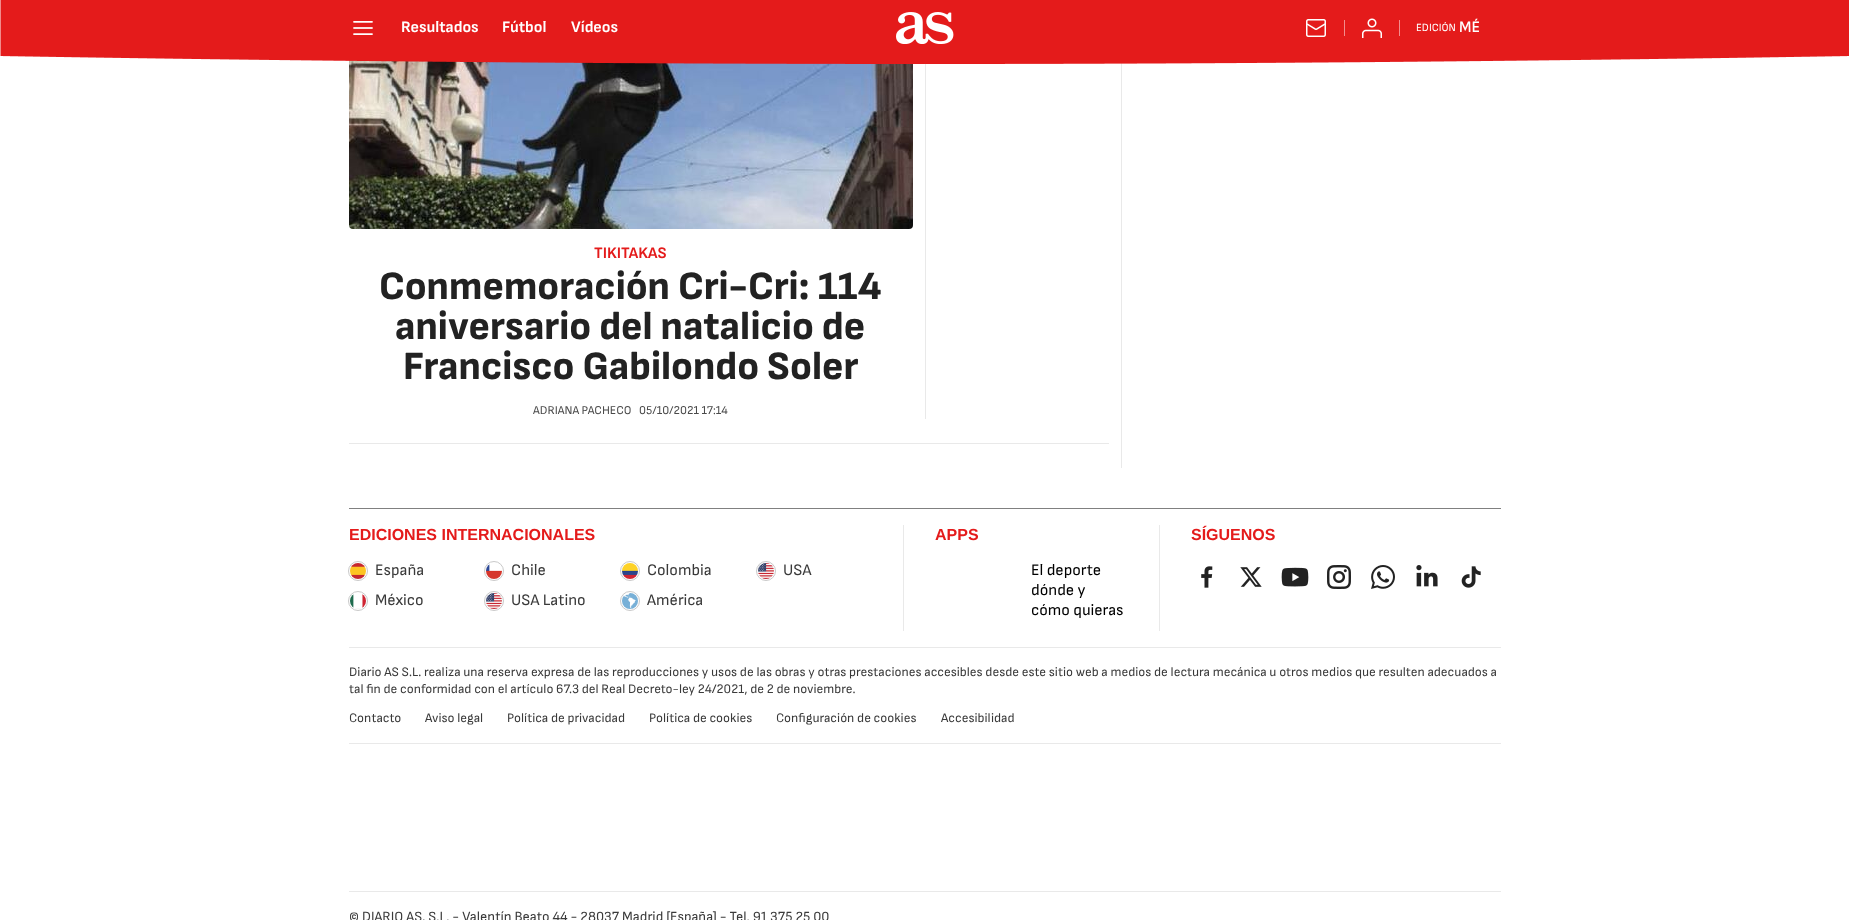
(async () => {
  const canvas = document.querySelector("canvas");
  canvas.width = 1849;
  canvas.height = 920;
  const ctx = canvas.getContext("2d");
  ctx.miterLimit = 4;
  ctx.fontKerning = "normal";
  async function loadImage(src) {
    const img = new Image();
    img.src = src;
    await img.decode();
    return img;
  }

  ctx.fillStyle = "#ffffff";
  ctx.fillRect(0, 0, 1849, 920);
  ctx.drawImage(await loadImage("img/6.png"), 349, 60, 564, 169);
  ctx.fillStyle = "#e9e9e9";
  ctx.fillRect(925, 62, 1, 357);
  ctx.fillRect(1121, 63, 1, 405);
  ctx.drawImage(await loadImage("img/1.png"), 0, 0, 1849, 64);
  ctx.drawImage(await loadImage("img/2.png"), 353, 21, 20, 14);
  ctx.drawImage(await loadImage("img/3.png"), 896, 12, 58, 32);
  ctx.drawImage(await loadImage("img/4.png"), 1306, 19, 20, 18);
  ctx.fillStyle = "#f28d8d";
  ctx.fillRect(1344, 20, 1, 16);
  ctx.drawImage(await loadImage("img/5.png"), 1362, 18, 20, 20);
  for (const [x, y, w, h, color] of [
    [1399, 20, 1, 16, "#f28d8d"],
    [349, 443, 760, 1, "#e9e9e9"],
    [349, 508, 1152, 1, "#808080"],
  ]) {
    ctx.fillStyle = color;
    ctx.fillRect(x, y, w, h);
  }
  ctx.beginPath();
  ctx.arc(358, 571, 9.5, 0, Math.PI * 2);
  ctx.strokeStyle = "#c9c9c9";
  ctx.stroke();
  ctx.drawImage(await loadImage("img/7.png"), 350, 563, 16, 16);
  ctx.beginPath();
  ctx.arc(494, 571, 9.5, 0, Math.PI * 2);
  ctx.stroke();
  ctx.drawImage(await loadImage("img/8.png"), 486, 564, 16, 15);
  ctx.beginPath();
  ctx.arc(630, 571, 9.5, 0, Math.PI * 2);
  ctx.stroke();
  ctx.drawImage(await loadImage("img/9.png"), 622, 563, 16, 16);
  ctx.beginPath();
  ctx.arc(766, 571, 9.5, 0, Math.PI * 2);
  ctx.stroke();
  ctx.drawImage(await loadImage("img/10.png"), 758, 563, 16, 16);
  ctx.beginPath();
  ctx.arc(358, 601, 9.5, 0, Math.PI * 2);
  ctx.stroke();
  ctx.drawImage(await loadImage("img/11.png"), 350, 594, 16, 15);
  ctx.beginPath();
  ctx.arc(494, 601, 9.5, 0, Math.PI * 2);
  ctx.stroke();
  ctx.drawImage(await loadImage("img/12.png"), 486, 593, 16, 16);
  ctx.beginPath();
  ctx.arc(630, 601, 9.5, 0, Math.PI * 2);
  ctx.stroke();
  ctx.drawImage(await loadImage("img/13.png"), 622, 593, 16, 16);
  ctx.fillStyle = "#e9e9e9";
  ctx.fillRect(903, 525, 1, 106);
  ctx.fillRect(1159, 525, 1, 106);
  ctx.drawImage(await loadImage("img/14.png"), 1201, 566, 12, 22);
  ctx.drawImage(await loadImage("img/15.png"), 1240, 567, 22, 20);
  ctx.drawImage(await loadImage("img/16.png"), 1281, 567, 28, 20);
  ctx.drawImage(await loadImage("img/17.png"), 1327, 565, 24, 24);
  ctx.drawImage(await loadImage("img/18.png"), 1371, 565, 24, 24);
  ctx.drawImage(await loadImage("img/19.png"), 1416, 565, 22, 22);
  ctx.drawImage(await loadImage("img/20.png"), 1461, 566, 20, 22);
  for (const [x, y, w, h, color] of [
    [349, 647, 1152, 1, "#e9e9e9"],
    [349, 743, 1152, 1, "#e9e9e9"],
    [349, 891, 1152, 1, "#e9e9e9"],
  ]) {
    ctx.fillStyle = color;
    ctx.fillRect(x, y, w, h);
  }
  ctx.font = "bold 16px Sofia Sans";
  ctx.fillStyle = "#ffffff";
  for (const [text, x, y] of [
    ["Resultados", 401, 32],
    ["Fútbol", 502, 32],
    ["Vídeos", 571, 32],
  ]) {
    ctx.fillText(text, x, y);
  }
  ctx.font = "11px Sofia Sans";
  ctx.fillText("EDICIÓN", 1416, 31);
  ctx.font = "600 16px Sofia Sans";
  ctx.fillText("MÉ", 1459, 32);
  ctx.font = "bold 16px Sofia Sans";
  ctx.fillStyle = "#e41b1b";
  ctx.fillText("TIKITAKAS", 594, 258);
  ctx.font = "800 40px Sofia Sans";
  ctx.fillStyle = "#222222";
  for (const [text, x, y] of [
    ["Conmemoración Cri-Cri: 114", 379, 299],
    ["aniversario del natalicio de", 395, 339],
    ["Francisco Gabilondo Soler", 403, 379],
  ]) {
    ctx.fillText(text, x, y);
  }
  ctx.font = "12px Sofia Sans";
  ctx.fillStyle = "#4a4a4a";
  ctx.fillText("ADRIANA PACHECO", 533, 414);
  ctx.fillText("05/10/2021 17:14", 639, 414);
  ctx.font = "bold 16px Liberation Sans";
  ctx.fillStyle = "#e41b1b";
  ctx.fillText("EDICIONES INTERNACIONALES", 349, 540);
  ctx.font = "16px Sofia Sans";
  ctx.fillStyle = "#3a3a3a";
  for (const [text, x, y] of [
    ["España", 375, 575],
    ["Chile", 511, 575],
    ["Colombia", 647, 575],
    ["USA", 783, 575],
    ["México", 375, 605],
    ["USA Latino", 511, 605],
    ["América", 647, 605],
  ]) {
    ctx.fillText(text, x, y);
  }
  ctx.font = "bold 16px Liberation Sans";
  ctx.fillStyle = "#e41b1b";
  ctx.fillText("APPS", 935, 540);
  ctx.font = "16px Sofia Sans";
  ctx.fillStyle = "#000000";
  for (const [text, x, y] of [
    ["El deporte", 1031, 575],
    ["dónde y", 1031, 595],
    ["cómo quieras", 1031, 615],
  ]) {
    ctx.fillText(text, x, y);
  }
  ctx.font = "bold 16px Liberation Sans";
  ctx.fillStyle = "#e41b1b";
  ctx.fillText("SÍGUENOS", 1191, 540);
  ctx.font = "13px Sofia Sans";
  ctx.fillStyle = "#3a3a3a";
  for (const [text, x, y] of [
    ["Diario AS S.L. realiza una reserva expresa de las reproducciones y usos de las obras y otras prestaciones accesibles desde este sitio web a medios de lectura mecánica u otros medios que resulten adecuados a", 349, 676],
    ["tal fin de conformidad con el artículo 67.3 del Real Decreto-ley 24/2021, de 2 de noviembre.", 349, 693],
    ["Contacto", 349, 722],
    ["Aviso legal", 425, 722],
    ["Política de privacidad", 507, 722],
    ["Política de cookies", 649, 722],
    ["Configuración de cookies", 776, 722],
    ["Accesibilidad", 941, 722],
  ]) {
    ctx.fillText(text, x, y);
  }
  ctx.font = "14px Sofia Sans";
  ctx.fillText("© DIARIO AS, S.L. - Valentín Beato 44 - 28037 Madrid [España] - Tel. 91 375 25 00", 349, 921);
})();
